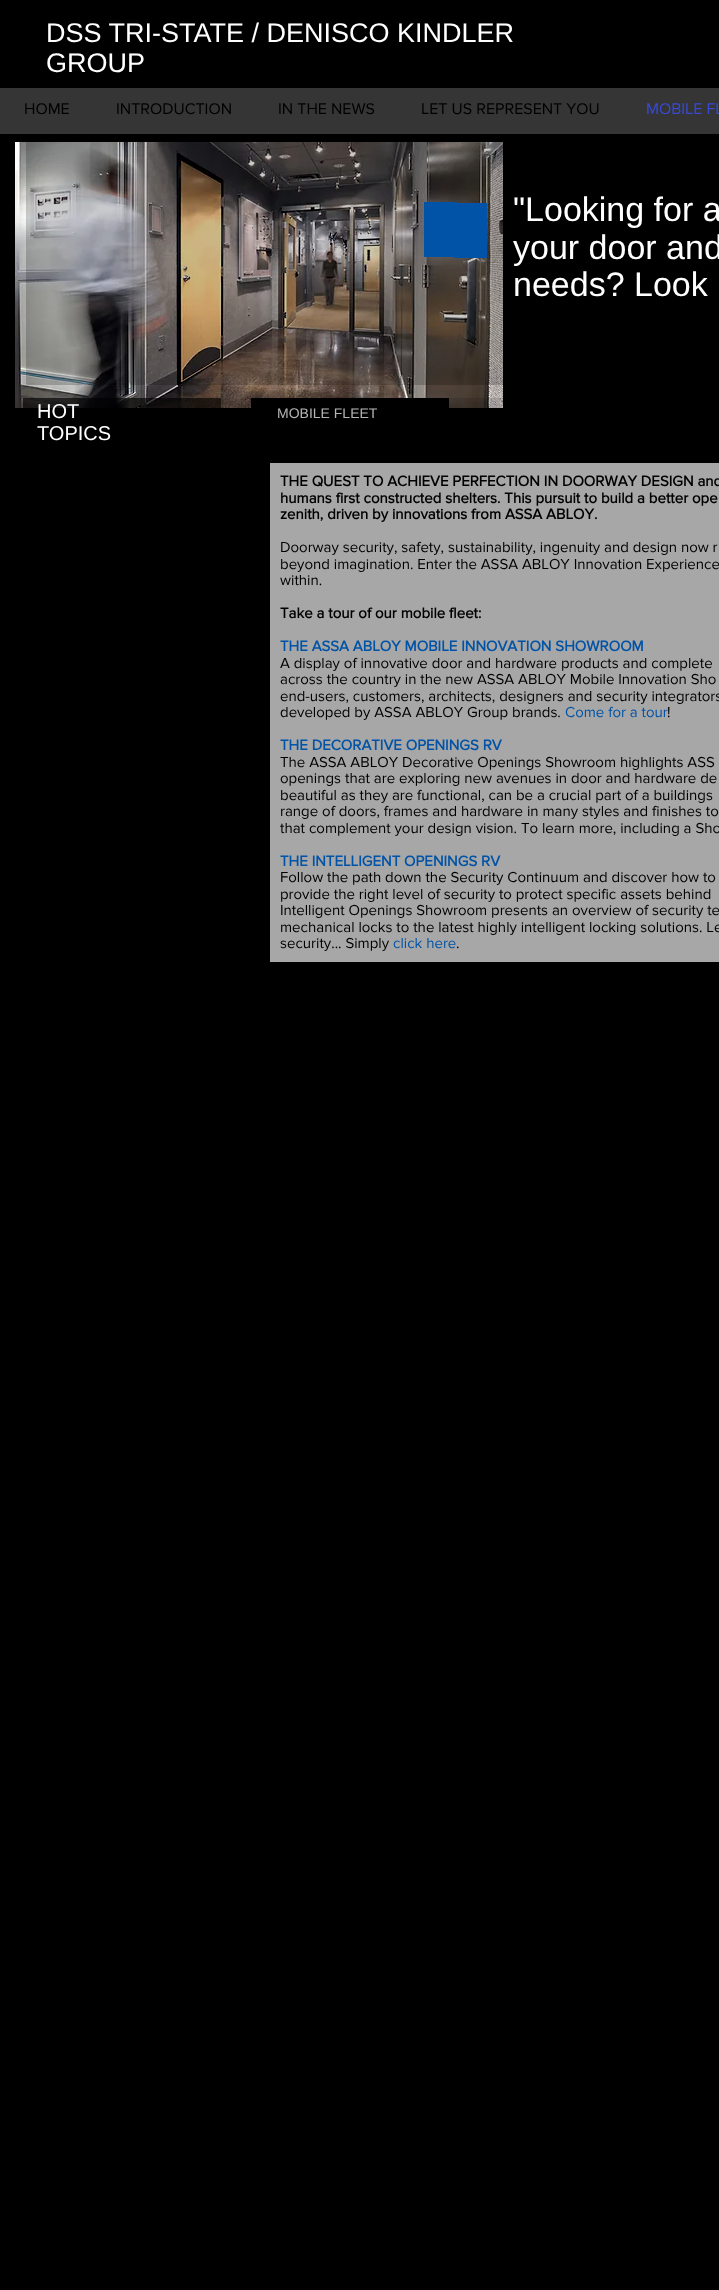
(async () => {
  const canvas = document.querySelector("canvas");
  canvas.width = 719;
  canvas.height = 2290;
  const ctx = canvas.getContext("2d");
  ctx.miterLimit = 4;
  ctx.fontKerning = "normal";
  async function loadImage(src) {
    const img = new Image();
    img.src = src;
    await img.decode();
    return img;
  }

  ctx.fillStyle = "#000000";
  ctx.fillRect(0, 0, 719, 2290);
  ctx.fillStyle = "#353535";
  ctx.fillRect(0, 88, 719, 46);
  ctx.drawImage(await loadImage("img/1.png"), 15, 142, 488, 266);
  for (const [x, y, w, h, color] of [
    [26, 142, 477, 243, "rgba(0, 0, 0, 0.2)"],
    [454, 203, 33, 55, "#0153a7"],
    [424, 202, 33, 55, "#0153a7"],
    [23, 398, 198, 10, "rgba(0, 0, 0, 0.65)"],
    [251, 398, 198, 10, "#000000"],
    [449, 398, 54, 10, "rgba(0, 0, 0, 0.12)"],
    [270, 463, 449, 499, "#a7a7a7"],
  ]) {
    ctx.fillStyle = color;
    ctx.fillRect(x, y, w, h);
  }
  ctx.font = "27px Liberation Sans";
  ctx.fillStyle = "#ffffff";
  ctx.fillText("DSS TRI-STATE / DENISCO KINDLER", 46, 42);
  ctx.fillText("GROUP", 46, 72);
  ctx.font = "16px 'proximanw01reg'";
  ctx.fillStyle = "#000000";
  for (const [text, x, y] of [
    ["HOME", 24, 114],
    ["INTRODUCTION", 116, 114],
    ["IN THE NEWS", 278, 114],
    ["LET US REPRESENT YOU", 421, 114],
  ]) {
    ctx.fillText(text, x, y);
  }
  ctx.fillStyle = "#384ad3";
  ctx.fillText("MOBILE FL", 646, 114);
  ctx.font = "34px Liberation Sans";
  ctx.fillStyle = "#ffffff";
  for (const [text, x, y] of [
    ["\"Looking for a", 513, 221],
    ["your door and", 513, 259],
    ["needs? Look", 513, 296],
  ]) {
    ctx.fillText(text, x, y);
  }
  ctx.font = "20px Liberation Sans";
  ctx.fillText("HOT", 37, 418);
  ctx.fillText("TOPICS", 37, 440);
  ctx.font = "14px Liberation Sans";
  ctx.fillStyle = "#b5b5b5";
  ctx.fillText("MOBILE FLEET", 277, 418);
  ctx.font = "bold 15px 'proximanw01reg'";
  ctx.fillStyle = "#000000";
  for (const [text, x, y] of [
    ["THE QUEST TO ACHIEVE PERFECTION IN DOORWAY DESIGN and", 280, 486],
    ["humans first constructed shelters. This pursuit to build a better ope", 280, 503],
    ["zenith, driven by innovations from ASSA ABLOY.", 280, 519],
  ]) {
    ctx.fillText(text, x, y);
  }
  ctx.font = "15px 'proximanw01reg'";
  for (const [text, x, y] of [
    ["Doorway security, safety, sustainability, ingenuity and design now r", 280, 552],
    ["beyond imagination. Enter the ASSA ABLOY Innovation Experience", 280, 569],
    ["within.", 280, 585],
  ]) {
    ctx.fillText(text, x, y);
  }
  ctx.font = "bold 15px 'proximanw01reg'";
  ctx.fillText("Take a tour of our mobile fleet:", 280, 618);
  ctx.fillStyle = "#0153a7";
  ctx.fillText("THE ASSA ABLOY MOBILE INNOVATION SHOWROOM", 280, 651);
  ctx.font = "15px 'proximanw01reg'";
  ctx.fillStyle = "#000000";
  for (const [text, x, y] of [
    ["A display of innovative door and hardware products and complete", 280, 668],
    ["across the country in the new ASSA ABLOY Mobile Innovation Sho", 280, 684],
    ["end-users, customers, architects, designers and security integrators", 280, 701],
    ["developed by ASSA ABLOY Group brands.", 280, 717],
  ]) {
    ctx.fillText(text, x, y);
  }
  ctx.fillStyle = "#0153a7";
  ctx.fillText("Come for a tour", 565, 717);
  ctx.fillStyle = "#000000";
  ctx.fillText("!", 667, 717);
  ctx.font = "bold 15px 'proximanw01reg'";
  ctx.fillStyle = "#0153a7";
  ctx.fillText("THE DECORATIVE OPENINGS RV", 280, 750);
  ctx.font = "15px 'proximanw01reg'";
  ctx.fillStyle = "#000000";
  for (const [text, x, y] of [
    ["The ASSA ABLOY Decorative Openings Showroom highlights ASS", 280, 767],
    ["openings that are exploring new avenues in door and hardware de", 280, 783],
    ["beautiful as they are functional, can be a crucial part of a buildings", 280, 800],
    ["range of doors, frames and hardware in many styles and finishes to", 280, 816],
    ["that complement your design vision. To learn more, including a Sho", 280, 833],
  ]) {
    ctx.fillText(text, x, y);
  }
  ctx.font = "bold 15px 'proximanw01reg'";
  ctx.fillStyle = "#0153a7";
  ctx.fillText("THE INTELLIGENT OPENINGS RV", 280, 866);
  ctx.font = "15px 'proximanw01reg'";
  ctx.fillStyle = "#000000";
  for (const [text, x, y] of [
    ["Follow the path down the Security Continuum and discover how to", 280, 882],
    ["provide the right level of security to protect specific assets behind", 280, 899],
    ["Intelligent Openings Showroom presents an overview of security te", 280, 915],
    ["mechanical locks to the latest highly intelligent locking solutions. Le", 280, 932],
    ["security... Simply", 280, 948],
  ]) {
    ctx.fillText(text, x, y);
  }
  ctx.fillStyle = "#0153a7";
  ctx.fillText("click here", 393, 948);
  ctx.fillStyle = "#000000";
  ctx.fillText(".", 456, 948);
})();
